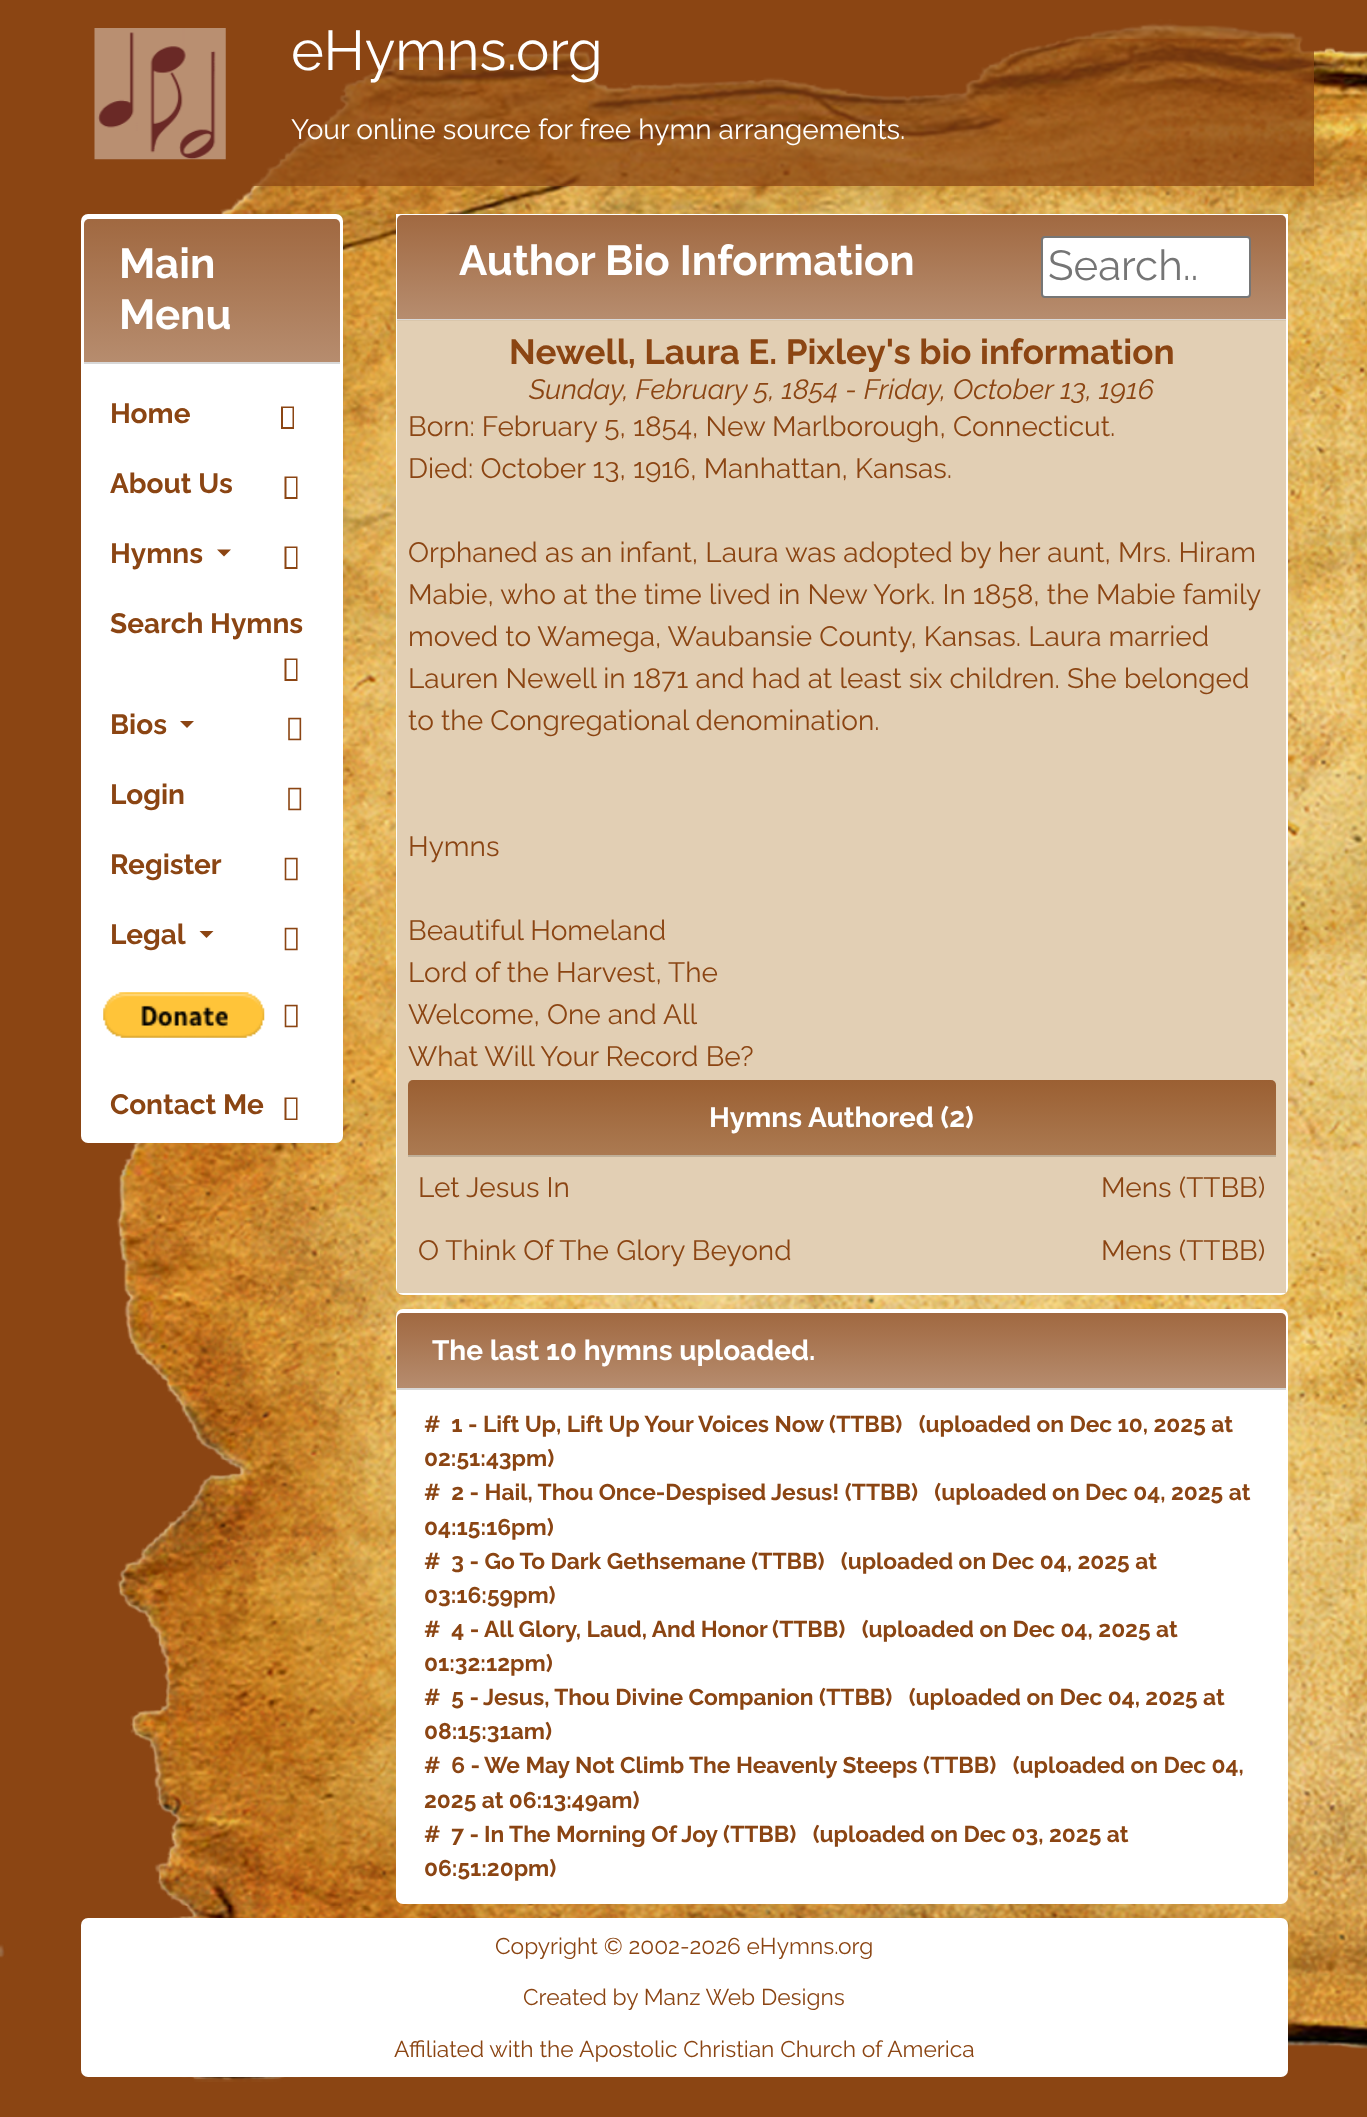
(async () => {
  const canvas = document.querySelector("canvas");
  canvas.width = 1367;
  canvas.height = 2117;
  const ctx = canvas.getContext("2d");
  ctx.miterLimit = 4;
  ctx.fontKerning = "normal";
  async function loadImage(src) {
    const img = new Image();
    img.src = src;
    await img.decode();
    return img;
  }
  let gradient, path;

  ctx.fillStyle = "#8b4513";
  ctx.fillRect(0, 0, 1367, 2117);
  ctx.drawImage(await loadImage("img/1.png"), 0, 19, 1367, 2063);
  ctx.fillStyle = "rgba(139, 69, 19, 0.72)";
  ctx.fillRect(251, 19, 1063, 167);
  ctx.drawImage(await loadImage("img/2.png"), 94, 28, 132, 132);
  ctx.fillStyle = "#ffffff";
  ctx.beginPath();
  ctx.roundRect(81, 214, 262, 929, 7);
  ctx.fill();
  ctx.fillStyle = "#f7f7f7";
  ctx.beginPath();
  ctx.roundRect(84, 219, 256, 145, [5, 5, 0, 0]);
  ctx.fill();
  gradient = ctx.createLinearGradient(212, 219, 212, 362);
  gradient.addColorStop(0, "rgba(139, 69, 19, 0.8)");
  gradient.addColorStop(1, "rgba(139, 69, 19, 0.6)");
  ctx.fillStyle = gradient;
  ctx.beginPath();
  ctx.roundRect(84, 219, 256, 143, [5, 5, 0, 0]);
  ctx.fill();
  ctx.fillStyle = "#d8d8d8";
  ctx.fillRect(84, 362, 256, 2);
  ctx.fillStyle = "#8b4513";
  path = new Path2D("M281 429V406.5H294V429ZM283 427H292.5V408H283Z");
  ctx.fill(path);
  path = new Path2D("M284.5 499V476.5H297.5V499ZM286.5 497H296V478H286.5Z");
  ctx.fill(path);
  path = new Path2D("M217 549.5H231L224 556.5Z");
  ctx.fill(path);
  path = new Path2D("M284.5 569V546.5H297.5V569ZM286.5 567H296V548H286.5Z");
  ctx.fill(path);
  path = new Path2D("M284.5 681V658.5H297.5V681ZM286.5 679H296V660H286.5Z");
  ctx.fill(path);
  path = new Path2D("M180 721H194L187 728Z");
  ctx.fill(path);
  ctx.drawImage(await loadImage("img/3.png"), 288, 717, 14, 24);
  ctx.drawImage(await loadImage("img/3.png"), 288, 787, 14, 24);
  ctx.drawImage(await loadImage("img/4.png"), 284, 857, 14, 24);
  path = new Path2D("M199.5 931H213.5L206.5 938Z");
  ctx.fill(path);
  ctx.drawImage(await loadImage("img/4.png"), 284, 927, 14, 24);
  ctx.drawImage(await loadImage("img/5.png"), 103, 992, 162, 46);
  ctx.drawImage(await loadImage("img/4.png"), 284, 1004, 14, 24);
  path = new Path2D("M284.5 1120V1097.5H297.5V1120ZM286.5 1118.5H296V1099H286.5Z");
  ctx.fill(path);
  ctx.fillStyle = "#ffffff";
  ctx.beginPath();
  ctx.roundRect(396, 214, 892, 1081, [0, 0, 7, 7]);
  ctx.fill();
  ctx.fillStyle = "#f8f8f8";
  ctx.beginPath();
  ctx.roundRect(397, 215, 889, 105, [5, 5, 0, 0]);
  ctx.fill();
  gradient = ctx.createLinearGradient(842, 215, 842, 319);
  gradient.addColorStop(0, "rgba(139, 69, 19, 0.8)");
  gradient.addColorStop(1, "rgba(139, 69, 19, 0.6)");
  ctx.fillStyle = gradient;
  ctx.beginPath();
  ctx.roundRect(397, 215, 889, 104, [5, 5, 0, 0]);
  ctx.fill();
  ctx.fillStyle = "rgba(0, 0, 0, 0.12)";
  ctx.fillRect(397, 319, 889, 2);
  ctx.fillStyle = "#ffffff";
  ctx.beginPath();
  ctx.roundRect(1042, 237, 208, 60, 3);
  ctx.fill();
  ctx.strokeStyle = "#767676";
  ctx.lineWidth = 2;
  ctx.stroke();
  ctx.fillStyle = "rgba(214, 187, 148, 0.7)";
  ctx.fillRect(397, 320, 889, 973);
  ctx.fillStyle = "#dbc9af";
  ctx.beginPath();
  ctx.roundRect(408, 1080, 868, 77, [5, 5, 0, 0]);
  ctx.fill();
  gradient = ctx.createLinearGradient(842, 1080, 842, 1155);
  gradient.addColorStop(0, "rgba(139, 69, 19, 0.8)");
  gradient.addColorStop(1, "rgba(139, 69, 19, 0.6)");
  ctx.fillStyle = gradient;
  ctx.beginPath();
  ctx.roundRect(408, 1080, 868, 75, [5, 5, 0, 0]);
  ctx.fill();
  ctx.fillStyle = "#c0b099";
  ctx.fillRect(408, 1155, 868, 2);
  ctx.fillStyle = "#ffffff";
  ctx.beginPath();
  ctx.roundRect(396, 1309, 892, 595, 7);
  ctx.fill();
  ctx.fillStyle = "#f7f7f7";
  ctx.beginPath();
  ctx.roundRect(397, 1313, 889, 77, [5, 5, 0, 0]);
  ctx.fill();
  gradient = ctx.createLinearGradient(842, 1313, 842, 1388);
  gradient.addColorStop(0, "rgba(139, 69, 19, 0.8)");
  gradient.addColorStop(1, "rgba(139, 69, 19, 0.6)");
  ctx.fillStyle = gradient;
  ctx.beginPath();
  ctx.roundRect(397, 1313, 889, 75, [5, 5, 0, 0]);
  ctx.fill();
  ctx.fillStyle = "#d8d8d8";
  ctx.fillRect(397, 1388, 889, 2);
  ctx.fillStyle = "#ffffff";
  ctx.beginPath();
  ctx.roundRect(81, 1918, 1207, 159, 7);
  ctx.fill();
  ctx.font = "56px Raleway";
  ctx.fillText("eHymns.org", 291, 70);
  ctx.font = "28px Raleway";
  ctx.fillText("Your online source for free hymn arrangements.", 291, 139);
  ctx.font = "bold 42px Raleway";
  ctx.fillText("Main", 119, 278);
  ctx.fillText("Menu", 119, 329);
  ctx.font = "bold 28px Raleway";
  ctx.fillStyle = "#8b4513";
  for (const [text, x, y] of [
    ["Home", 110, 423],
    ["About Us", 110, 493],
    ["Hymns", 110, 563],
    ["Search Hymns", 110, 633],
    ["Bios", 110, 734],
    ["Login", 110, 804],
    ["Register", 110, 874],
    ["Legal", 110, 944],
    ["Contact Me", 110, 1114],
  ]) {
    ctx.fillText(text, x, y);
  }
  ctx.font = "bold 42px Raleway";
  ctx.fillStyle = "#ffffff";
  ctx.fillText("Author Bio Information", 459, 275);
  ctx.font = "42px Raleway";
  ctx.fillStyle = "#757575";
  ctx.fillText("Search..", 1048, 280);
  ctx.font = "bold 35px Raleway";
  ctx.fillStyle = "#8b4513";
  ctx.fillText("Newell, Laura E. Pixley's bio information", 509, 364);
  ctx.font = "italic 28px Raleway";
  ctx.fillText("Sunday, February 5, 1854 - Friday, October 13, 1916", 529, 399);
  ctx.font = "28px Raleway";
  for (const [text, x, y] of [
    ["Born: February 5, 1854, New Marlborough, Connecticut.", 408, 436],
    ["Died: October 13, 1916, Manhattan, Kansas.", 408, 478],
    ["Orphaned as an infant, Laura was adopted by her aunt, Mrs. Hiram", 408, 562],
    ["Mabie, who at the time lived in New York. In 1858, the Mabie family", 408, 604],
    ["moved to Wamega, Waubansie County, Kansas. Laura married", 408, 646],
    ["Lauren Newell in 1871 and had at least six children. She belonged", 408, 688],
    ["to the Congregational denomination.", 408, 730],
    ["Hymns", 408, 856],
    ["Beautiful Homeland", 408, 940],
    ["Lord of the Harvest, The", 408, 982],
    ["Welcome, One and All", 408, 1024],
    ["What Will Your Record Be?", 408, 1066],
  ]) {
    ctx.fillText(text, x, y);
  }
  ctx.font = "bold 28px Raleway";
  ctx.fillStyle = "#ffffff";
  ctx.fillText("Hymns Authored (2)", 709, 1127);
  ctx.font = "28px Raleway";
  ctx.fillStyle = "#8b4513";
  for (const [text, x, y] of [
    ["Let Jesus In", 418, 1197],
    ["Mens (TTBB)", 1101, 1197],
    ["O Think Of The Glory Beyond", 418, 1260],
    ["Mens (TTBB)", 1101, 1260],
  ]) {
    ctx.fillText(text, x, y);
  }
  ctx.font = "bold 28px Raleway";
  ctx.fillStyle = "#ffffff";
  ctx.fillText("The last 10 hymns uploaded.", 432, 1360);
  ctx.font = "bold 22.75px Raleway";
  ctx.fillStyle = "#8b4513";
  for (const [text, x, y] of [
    ["#  1 - Lift Up, Lift Up Your Voices Now (TTBB)   (uploaded on Dec 10, 2025 at", 424, 1432],
    ["02:51:43pm)", 424, 1466],
    ["#  2 - Hail, Thou Once-Despised Jesus! (TTBB)   (uploaded on Dec 04, 2025 at", 424, 1500],
    ["04:15:16pm)", 424, 1535],
    ["#  3 - Go To Dark Gethsemane (TTBB)   (uploaded on Dec 04, 2025 at", 424, 1569],
    ["03:16:59pm)", 424, 1603],
    ["#  4 -", 424, 1637],
    ["All Glory, Laud, And Honor", 484, 1637],
    ["(TTBB)   (uploaded on Dec 04, 2025 at", 772, 1637],
    ["01:32:12pm)", 424, 1671],
    ["#  5 -", 424, 1705],
    ["Jesus, Thou Divine Companion (TTBB)   (uploaded on Dec 04, 2025 at", 483, 1705],
    ["08:15:31am)", 424, 1739],
    ["#  6 -", 424, 1773],
    ["We May Not Climb The Heavenly Steeps (TTBB)   (uploaded on Dec 04,", 484, 1773],
    ["2025 at 06:13:49am)", 424, 1808],
    ["#  7 -", 424, 1842],
    ["In The Morning Of Joy", 484, 1842],
    ["(TTBB)   (uploaded on Dec 03, 2025 at", 723, 1842],
    ["06:51:20pm)", 424, 1876],
  ]) {
    ctx.fillText(text, x, y);
  }
  ctx.font = "22.75px Raleway";
  for (const [text, x, y] of [
    ["Copyright © 2002-2026 eHymns.org", 495, 1954],
    ["Created by Manz Web Designs", 523, 2005],
    ["Affiliated with the", 394, 2057],
    ["Apostolic Christian Church of America", 579, 2057],
  ]) {
    ctx.fillText(text, x, y);
  }
})();
